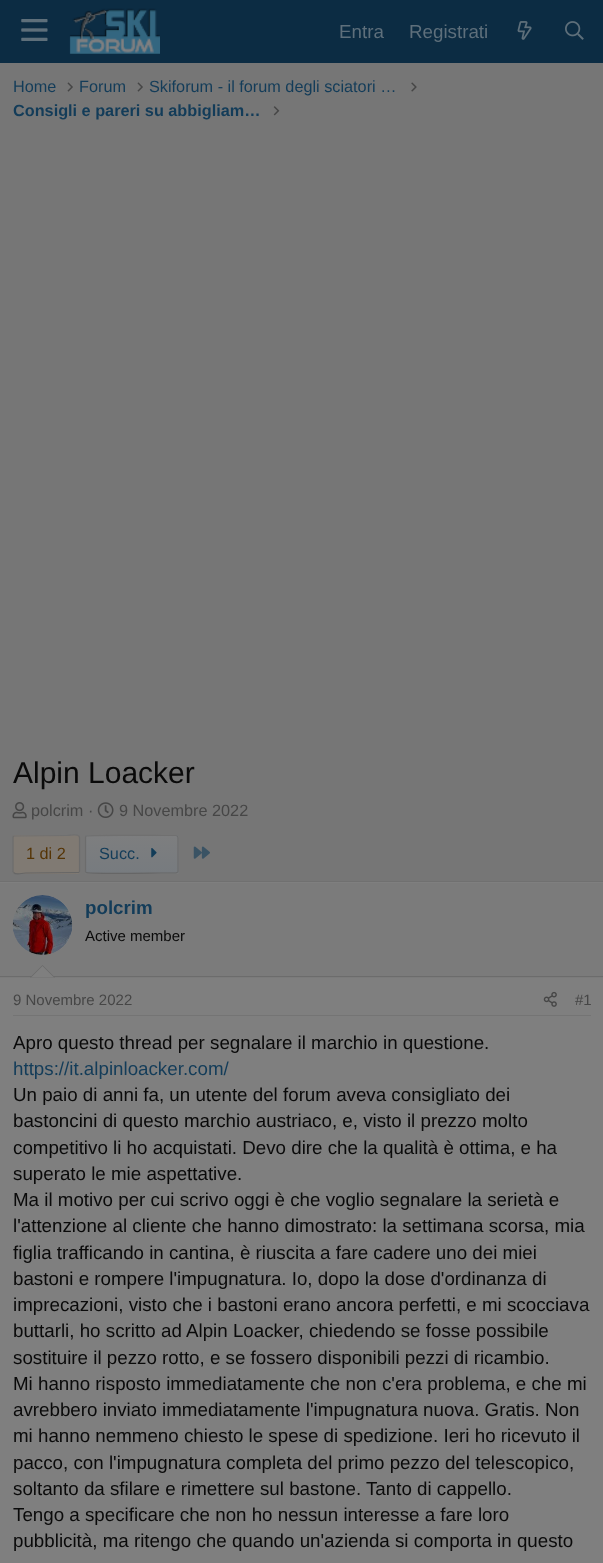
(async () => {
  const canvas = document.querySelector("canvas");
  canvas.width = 603;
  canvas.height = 1563;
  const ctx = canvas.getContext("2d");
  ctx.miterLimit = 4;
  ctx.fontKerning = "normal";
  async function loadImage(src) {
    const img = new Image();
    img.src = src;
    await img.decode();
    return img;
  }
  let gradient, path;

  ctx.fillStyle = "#767676";
  ctx.fillRect(0, 0, 603, 1563);
  ctx.fillStyle = "#0c2c43";
  ctx.fillRect(0, 0, 603, 63);
  ctx.drawImage(await loadImage("img/1.png"), 21, 19, 27, 22);
  ctx.drawImage(await loadImage("img/2.png"), 69, 8, 91, 46);
  ctx.drawImage(await loadImage("img/3.png"), 517, 21, 15, 19);
  ctx.drawImage(await loadImage("img/4.png"), 565, 21, 19, 19);
  ctx.drawImage(await loadImage("img/5.png"), 67, 82, 6, 10);
  ctx.drawImage(await loadImage("img/5.png"), 137, 82, 6, 10);
  ctx.drawImage(await loadImage("img/6.png"), 411, 82, 6, 10);
  ctx.drawImage(await loadImage("img/7.png"), 273, 106, 7, 10);
  ctx.drawImage(await loadImage("img/8.png"), 12, 802, 15, 17);
  ctx.drawImage(await loadImage("img/9.png"), 97, 802, 17, 16);
  ctx.fillStyle = "#807a73";
  ctx.beginPath();
  ctx.roundRect(13, 835, 67, 39, 2.5);
  ctx.fill();
  path = new Path2D("M13.5 836L67 835.5C71 835.5 76 833.5 79 836");
  ctx.strokeStyle = "#707070";
  ctx.lineWidth = 1.2;
  ctx.stroke(path);
  path = new Path2D("M79 836L79.5 837.5V871.5L79 872.5");
  ctx.strokeStyle = "#6c6c6c";
  ctx.stroke(path);
  path = new Path2D("M79 872.5L25.5 873C21.5 873 16.5 875.5 13.5 872.5");
  ctx.strokeStyle = "#666666";
  ctx.stroke(path);
  path = new Path2D("M13.5 872.5L13 871.5V837.5L13.5 836");
  ctx.strokeStyle = "#6c6c6c";
  ctx.stroke(path);
  ctx.save();
  ctx.beginPath();
  ctx.roundRect(85, 835, 94, 39, 2.5);
  ctx.clip();
  gradient = ctx.createLinearGradient(132, 836, 132, 800);
  gradient.addColorStop(0, "#777b7f");
  gradient.addColorStop(1, "#7d7e7f");
  ctx.fillStyle = gradient;
  ctx.fillRect(85, 835, 94, 1);
  gradient = ctx.createLinearGradient(132, 873, 132, 836);
  gradient.addColorStop(0, "#777b7f");
  gradient.addColorStop(1, "#7d7e7f");
  ctx.fillStyle = gradient;
  ctx.fillRect(85, 836, 94, 37);
  gradient = ctx.createLinearGradient(132, 909, 132, 873);
  gradient.addColorStop(0, "#777b7f");
  gradient.addColorStop(1, "#7d7e7f");
  ctx.fillStyle = gradient;
  ctx.fillRect(85, 873, 94, 1);
  ctx.restore();
  path = new Path2D("M86 836C87.5 835 153.5 835.5 161.5 835.5H176L177.5 836");
  ctx.strokeStyle = "#707070";
  ctx.stroke(path);
  path = new Path2D("M177.5 836L178 837.5V871.5L177.5 872.5");
  ctx.strokeStyle = "#6c6c6c";
  ctx.stroke(path);
  path = new Path2D("M177.5 872.5L176 873H161.5C153.5 873 87.5 874 86 872.5");
  ctx.strokeStyle = "#666666";
  ctx.stroke(path);
  path = new Path2D("M86 872.5L85.5 871.5V837.5L86 836");
  ctx.strokeStyle = "#6c6c6c";
  ctx.stroke(path);
  ctx.drawImage(await loadImage("img/10.png"), 151, 848, 6, 10);
  ctx.drawImage(await loadImage("img/11.png"), 193, 846, 17, 13);
  for (const [x, y, w, h, color] of [
    [0, 882, 603, 681, "#7f7f7f"],
    [0, 881, 603, 1, "#707070"],
    [0, 883, 603, 95, "#7b7b7b"],
    [0, 976, 603, 1, "#6c6c6c"],
  ]) {
    ctx.fillStyle = color;
    ctx.fillRect(x, y, w, h);
  }
  ctx.fillStyle = "#7f7f7f";
  ctx.beginPath();
  ctx.arc(43, 925, 30, 0, Math.PI * 2);
  ctx.fill();
  ctx.drawImage(await loadImage("img/12.png"), 12, 895, 61, 60);
  ctx.fillStyle = "#6c6c6c";
  path = new Path2D("M55 977.5H30L42.5 965Z");
  ctx.fill(path);
  ctx.fillStyle = "#7f7f7f";
  path = new Path2D("M54 977.5H31L42.5 966Z");
  ctx.fill(path);
  ctx.fillStyle = "#747474";
  ctx.fillRect(13, 1015, 578, 1);
  ctx.drawImage(await loadImage("img/13.png"), 543, 991, 14, 16);
  ctx.font = "18.75px Liberation Sans";
  ctx.fillStyle = "#5e6f7b";
  ctx.fillText("Entra", 339, 38);
  ctx.fillText("Registrati", 409, 38);
  ctx.font = "16.25px Liberation Sans";
  ctx.fillStyle = "#133c59";
  for (const [text, x, y] of [
    ["Home", 13, 92],
    ["Forum", 79, 92],
    ["Skiforum - il forum degli sciatori …", 149, 92],
  ]) {
    ctx.fillText(text, x, y);
  }
  ctx.font = "bold 16.25px Liberation Sans";
  ctx.fillText("Consigli e pareri su abbigliam…", 13, 116);
  ctx.font = "30px Liberation Sans";
  ctx.fillStyle = "#0a0a0a";
  ctx.fillText("Alpin Loacker", 13, 783);
  ctx.font = "16.25px Liberation Sans";
  ctx.fillStyle = "#464646";
  ctx.fillText("polcrim ·", 31, 816);
  ctx.fillText("9 Novembre 2022", 119, 816);
  ctx.fillStyle = "#553405";
  ctx.fillText("1 di 2", 26, 859);
  ctx.fillStyle = "#133c59";
  ctx.fillText("Succ.", 99, 859);
  ctx.font = "bold 18.75px Liberation Sans";
  ctx.fillText("polcrim", 85, 914);
  ctx.font = "15px Liberation Sans";
  ctx.fillStyle = "#0a0a0a";
  ctx.fillText("Active member", 85, 941);
  ctx.fillStyle = "#464646";
  ctx.fillText("9 Novembre 2022", 13, 1005);
  ctx.fillText("#1", 575, 1005);
  ctx.font = "18.75px Liberation Sans";
  ctx.fillStyle = "#0a0a0a";
  ctx.fillText("Apro questo thread per segnalare il marchio in questione.", 13, 1049);
  ctx.fillStyle = "#133c59";
  ctx.fillText("https://it.alpinloacker.com/", 13, 1075);
  ctx.fillStyle = "#0a0a0a";
  for (const [text, x, y] of [
    ["Un paio di anni fa, un utente del forum aveva consigliato dei", 13, 1101],
    ["bastoncini di questo marchio austriaco, e, visto il prezzo molto", 13, 1127],
    ["competitivo li ho acquistati. Devo dire che la qualità è ottima, e ha", 13, 1154],
    ["superato le mie aspettative.", 13, 1180],
    ["Ma il motivo per cui scrivo oggi è che voglio segnalare la serietà e", 13, 1206],
    ["l'attenzione al cliente che hanno dimostrato: la settimana scorsa, mia", 13, 1232],
    ["figlia trafficando in cantina, è riuscita a fare cadere uno dei miei", 13, 1259],
    ["bastoni e rompere l'impugnatura. Io, dopo la dose d'ordinanza di", 13, 1285],
    ["imprecazioni, visto che i bastoni erano ancora perfetti, e mi scocciava", 13, 1311],
    ["buttarli, ho scritto ad Alpin Loacker, chiedendo se fosse possibile", 13, 1337],
    ["sostituire il pezzo rotto, e se fossero disponibili pezzi di ricambio.", 13, 1364],
    ["Mi hanno risposto immediatamente che non c'era problema, e che mi", 13, 1390],
    ["avrebbero inviato immediatamente l'impugnatura nuova. Gratis. Non", 13, 1416],
    ["mi hanno nemmeno chiesto le spese di spedizione. Ieri ho ricevuto il", 13, 1442],
    ["pacco, con l'impugnatura completa del primo pezzo del telescopico,", 13, 1469],
    ["soltanto da sfilare e rimettere sul bastone. Tanto di cappello.", 13, 1495],
    ["Tengo a specificare che non ho nessun interesse a fare loro", 13, 1521],
    ["pubblicità, ma ritengo che quando un'azienda si comporta in questo", 13, 1547],
  ]) {
    ctx.fillText(text, x, y);
  }
})();
